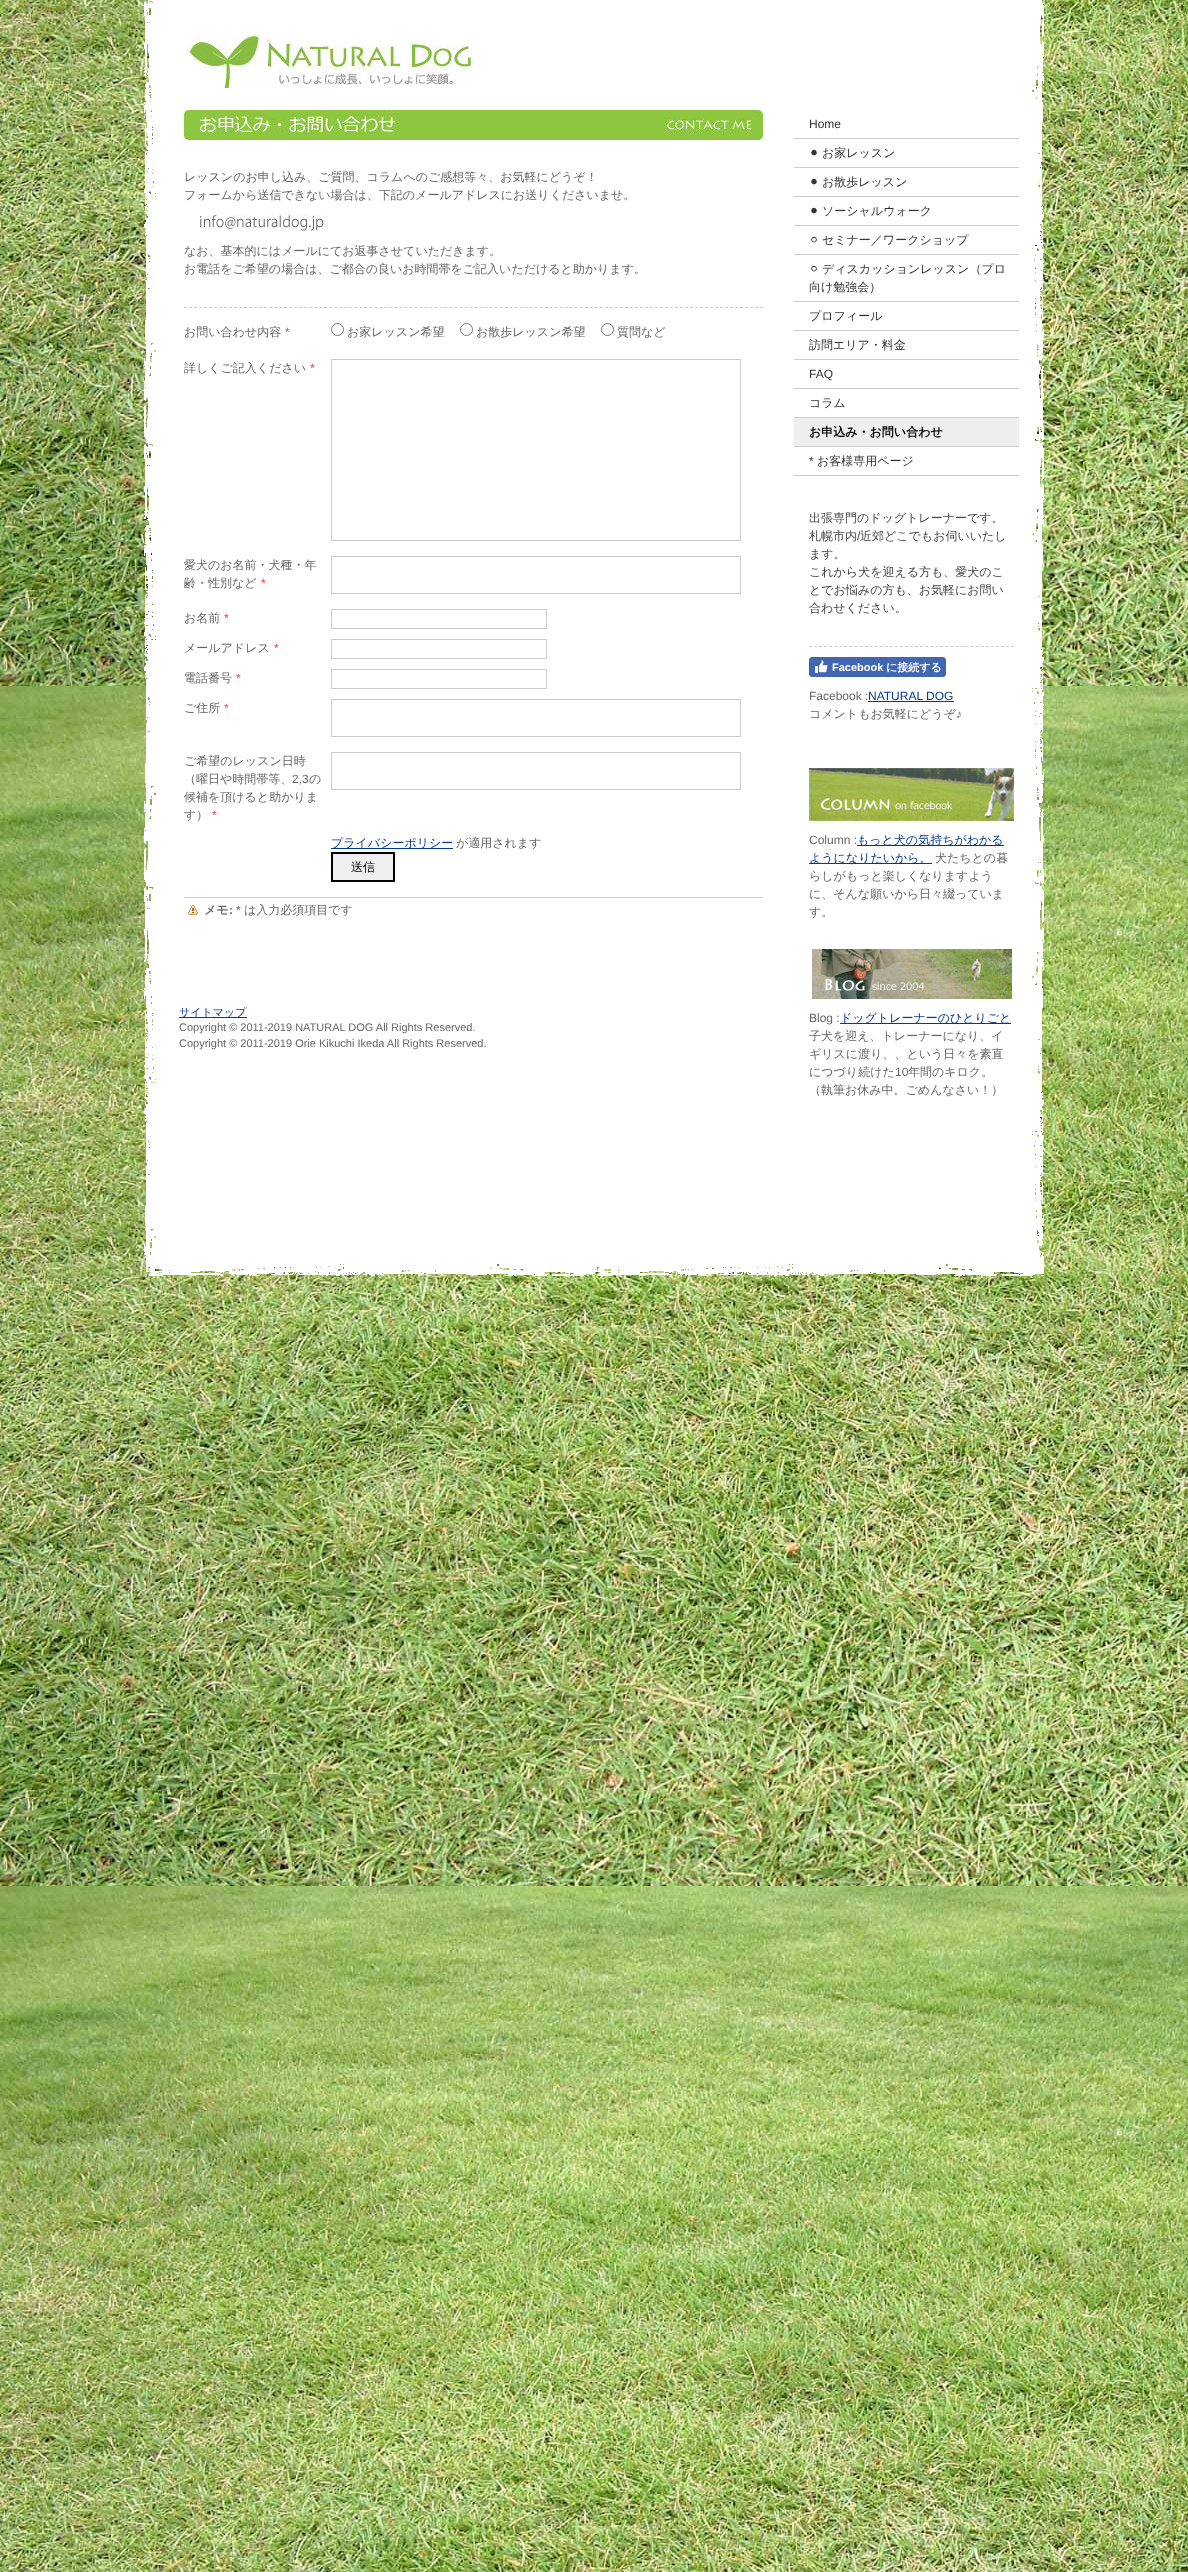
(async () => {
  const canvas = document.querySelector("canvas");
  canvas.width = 1188;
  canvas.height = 2572;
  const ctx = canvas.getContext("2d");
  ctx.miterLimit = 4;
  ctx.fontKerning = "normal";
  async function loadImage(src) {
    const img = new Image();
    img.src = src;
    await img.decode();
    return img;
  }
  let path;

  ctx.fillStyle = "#ffffff";
  ctx.fillRect(0, 0, 1188, 2572);
  ctx.drawImage(await loadImage("img/1.png"), 0, 0, 1188, 2572);
  ctx.drawImage(await loadImage("img/2.png"), 144, 0, 900, 1257);
  ctx.drawImage(await loadImage("img/3.png"), 185, 31, 288, 57);
  ctx.drawImage(await loadImage("img/4.png"), 184, 110, 579, 30);
  ctx.drawImage(await loadImage("img/5.png"), 200, 214, 128, 18);
  path = new Path2D("M184 307.5H763");
  ctx.strokeStyle = "#cccccc";
  ctx.setLineDash([3, 2.01]);
  ctx.stroke(path);
  ctx.beginPath();
  ctx.arc(337.5, 329.5, 6, 0, Math.PI * 2);
  ctx.strokeStyle = "#767676";
  ctx.setLineDash([]);
  ctx.stroke();
  ctx.beginPath();
  ctx.arc(466.5, 329.5, 6, 0, Math.PI * 2);
  ctx.stroke();
  ctx.beginPath();
  ctx.arc(607.5, 329.5, 6, 0, Math.PI * 2);
  ctx.stroke();
  ctx.strokeStyle = "#cccccc";
  ctx.strokeRect(331.5, 359.5, 409, 181);
  ctx.strokeRect(331.5, 556.5, 409, 37);
  ctx.strokeRect(331.5, 609.5, 215, 19);
  ctx.strokeRect(331.5, 639.5, 215, 19);
  ctx.strokeRect(331.5, 669.5, 215, 19);
  ctx.strokeRect(331.5, 699.5, 409, 37);
  ctx.strokeRect(331.5, 752.5, 409, 37);
  ctx.fillStyle = "#003a91";
  ctx.fillRect(331, 848, 122, 1);
  ctx.fillStyle = "#efefef";
  ctx.beginPath();
  ctx.rect(332, 853, 62, 28);
  ctx.fill();
  ctx.strokeStyle = "#000000";
  ctx.lineWidth = 2;
  ctx.stroke();
  ctx.drawImage(await loadImage("img/6.png"), 188, 905, 10, 10);
  for (const [x, y, w, h, color] of [
    [184, 897, 579, 1, "#cccccc"],
    [179, 1017, 68, 1, "#003a91"],
    [794, 138, 225, 1, "#cccccc"],
    [794, 167, 225, 1, "#cccccc"],
    [794, 196, 225, 1, "#cccccc"],
    [794, 225, 225, 1, "#cccccc"],
    [794, 254, 225, 1, "#cccccc"],
    [794, 301, 225, 1, "#cccccc"],
    [794, 330, 225, 1, "#cccccc"],
    [794, 359, 225, 1, "#cccccc"],
    [794, 388, 225, 1, "#cccccc"],
    [794, 417, 225, 1, "#cccccc"],
    [794, 418, 225, 28, "#eeeeee"],
    [794, 446, 225, 1, "#cccccc"],
    [794, 475, 225, 1, "#cccccc"],
  ]) {
    ctx.fillStyle = color;
    ctx.fillRect(x, y, w, h);
  }
  path = new Path2D("M809 646.5H1014");
  ctx.strokeStyle = "#cccccc";
  ctx.lineWidth = 1;
  ctx.setLineDash([3, 2.05]);
  ctx.stroke(path);
  ctx.fillStyle = "#4267b2";
  ctx.beginPath();
  ctx.roundRect(809.5, 657.5, 136, 19, 2.5);
  ctx.fill();
  ctx.strokeStyle = "#4267b2";
  ctx.setLineDash([]);
  ctx.stroke();
  ctx.drawImage(await loadImage("img/7.png"), 815, 660, 13, 13);
  ctx.fillStyle = "#003a91";
  ctx.fillRect(868, 701, 86, 1);
  ctx.drawImage(await loadImage("img/8.png"), 809, 768, 205, 53);
  ctx.fillRect(857, 845, 147, 1);
  ctx.fillRect(809, 863, 123, 1);
  ctx.drawImage(await loadImage("img/9.png"), 812, 949, 200, 50);
  ctx.fillRect(840, 1023, 171, 1);
  ctx.drawImage(await loadImage("img/10.png"), 146, 1257, 898, 19);
  ctx.font = "500 12px WenQuanYi Zen Hei";
  ctx.fillStyle = "#666666";
  for (const [text, x, y] of [
    ["レッスンのお申し込み、ご質問、コラムへのご感想等々、お気軽にどうぞ！", 184, 181],
    ["フォームから送信できない場合は、下記のメールアドレスにお送りくださいませ。", 184, 199],
    ["なお、基本的にはメールにてお返事させていただきます。", 184, 255],
    ["お電話をご希望の場合は、ご都合の良いお時間帯をご記入いただけると助かります。", 184, 273],
    ["お問い合わせ内容", 184, 336],
  ]) {
    ctx.fillText(text, x, y);
  }
  ctx.font = "12px Liberation Sans";
  ctx.fillStyle = "#eb433e";
  ctx.fillText("*", 285, 336);
  ctx.font = "500 12px WenQuanYi Zen Hei";
  ctx.fillStyle = "#666666";
  for (const [text, x, y] of [
    ["お家レッスン希望", 347, 336],
    ["お散歩レッスン希望", 476, 336],
    ["質問など", 617, 336],
    ["詳しくご記入ください", 184, 372],
  ]) {
    ctx.fillText(text, x, y);
  }
  ctx.font = "12px Liberation Sans";
  ctx.fillStyle = "#eb433e";
  ctx.fillText("*", 310, 372);
  ctx.font = "500 12px WenQuanYi Zen Hei";
  ctx.fillStyle = "#666666";
  ctx.fillText("愛犬のお名前・犬種・年", 184, 569);
  ctx.fillText("齢・性別など", 184, 587);
  ctx.font = "12px Liberation Sans";
  ctx.fillStyle = "#eb433e";
  ctx.fillText("*", 261, 587);
  ctx.font = "500 12px WenQuanYi Zen Hei";
  ctx.fillStyle = "#666666";
  ctx.fillText("お名前", 184, 622);
  ctx.font = "12px Liberation Sans";
  ctx.fillStyle = "#eb433e";
  ctx.fillText("*", 224, 622);
  ctx.font = "500 12px WenQuanYi Zen Hei";
  ctx.fillStyle = "#666666";
  ctx.fillText("メールアドレス", 184, 652);
  ctx.font = "12px Liberation Sans";
  ctx.fillStyle = "#eb433e";
  ctx.fillText("*", 274, 652);
  ctx.font = "500 12px WenQuanYi Zen Hei";
  ctx.fillStyle = "#666666";
  ctx.fillText("電話番号", 184, 682);
  ctx.font = "12px Liberation Sans";
  ctx.fillStyle = "#eb433e";
  ctx.fillText("*", 236, 682);
  ctx.font = "500 12px WenQuanYi Zen Hei";
  ctx.fillStyle = "#666666";
  ctx.fillText("ご住所", 184, 712);
  ctx.font = "12px Liberation Sans";
  ctx.fillStyle = "#eb433e";
  ctx.fillText("*", 224, 712);
  ctx.font = "500 12px WenQuanYi Zen Hei";
  ctx.fillStyle = "#666666";
  ctx.fillText("ご希望のレッスン日時", 184, 765);
  ctx.fillText("（曜日や時間帯等、", 184, 783);
  ctx.font = "12px Liberation Sans";
  ctx.fillText("2,3", 292, 783);
  ctx.font = "500 12px WenQuanYi Zen Hei";
  for (const [text, x, y] of [
    ["の", 309, 783],
    ["候補を頂けると助かりま", 184, 801],
    ["す）", 184, 819],
  ]) {
    ctx.fillText(text, x, y);
  }
  ctx.font = "12px Liberation Sans";
  ctx.fillStyle = "#eb433e";
  ctx.fillText("*", 212, 819);
  ctx.font = "500 12px WenQuanYi Zen Hei";
  ctx.fillStyle = "#003a91";
  ctx.fillText("プライバシーポリシー", 331, 847);
  ctx.fillStyle = "#666666";
  ctx.fillText("が適用されます", 456, 847);
  ctx.fillStyle = "#000000";
  ctx.fillText("送信", 351, 871);
  ctx.font = "bold 12px WenQuanYi Zen Hei";
  ctx.fillStyle = "#666666";
  ctx.fillText("メモ", 204, 914);
  ctx.font = "bold 12px Liberation Sans";
  ctx.fillText(":", 229, 914);
  ctx.font = "12px Liberation Sans";
  ctx.fillText("*", 236, 914);
  ctx.font = "500 12px WenQuanYi Zen Hei";
  ctx.fillText("は入力必須項目です", 244, 914);
  ctx.font = "500 11px WenQuanYi Zen Hei";
  ctx.fillStyle = "#003a91";
  ctx.fillText("サイトマップ", 179, 1016);
  ctx.font = "11px Liberation Sans";
  ctx.fillStyle = "#666666";
  ctx.fillText("Copyright © 2011-2019 NATURAL DOG All Rights Reserved.", 179, 1031);
  ctx.fillText("Copyright © 2011-2019 Orie Kikuchi Ikeda All Rights Reserved.", 179, 1047);
  ctx.font = "12px Liberation Sans";
  ctx.fillStyle = "#333333";
  ctx.fillText("Home", 809, 128);
  ctx.font = "12px DejaVu Sans";
  ctx.fillText("⚫︎", 809, 157);
  ctx.font = "500 12px WenQuanYi Zen Hei";
  ctx.fillText("お家レッスン", 822, 157);
  ctx.font = "12px DejaVu Sans";
  ctx.fillText("⚫︎", 809, 186);
  ctx.font = "500 12px WenQuanYi Zen Hei";
  ctx.fillText("お散歩レッスン", 822, 186);
  ctx.font = "12px DejaVu Sans";
  ctx.fillText("⚫︎", 809, 215);
  ctx.font = "500 12px WenQuanYi Zen Hei";
  ctx.fillText("ソーシャルウォーク", 822, 215);
  ctx.font = "12px DejaVu Sans";
  ctx.fillText("⚪︎", 809, 244);
  ctx.font = "500 12px WenQuanYi Zen Hei";
  ctx.fillText("セミナー／ワークショップ", 822, 244);
  ctx.font = "12px DejaVu Sans";
  ctx.fillText("⚪︎", 809, 273);
  ctx.font = "500 12px WenQuanYi Zen Hei";
  for (const [text, x, y] of [
    ["ディスカッションレッスン（プロ", 822, 273],
    ["向け勉強会）", 809, 291],
    ["プロフィール", 809, 320],
    ["訪問エリア・料金", 809, 349],
  ]) {
    ctx.fillText(text, x, y);
  }
  ctx.font = "12px Liberation Sans";
  ctx.fillText("FAQ", 809, 378);
  ctx.font = "500 12px WenQuanYi Zen Hei";
  ctx.fillText("コラム", 809, 407);
  ctx.font = "bold 12px WenQuanYi Zen Hei";
  ctx.fillStyle = "#000000";
  ctx.fillText("お申込み・お問い合わせ", 809, 436);
  ctx.font = "12px Liberation Sans";
  ctx.fillStyle = "#333333";
  ctx.fillText("*", 809, 465);
  ctx.font = "500 12px WenQuanYi Zen Hei";
  ctx.fillText("お客様専用ページ", 817, 465);
  ctx.fillStyle = "#454545";
  ctx.fillText("出張専門のドッグトレーナーです。", 809, 522);
  ctx.fillText("札幌市内", 809, 540);
  ctx.font = "12px Liberation Sans";
  ctx.fillText("/", 857, 540);
  ctx.font = "500 12px WenQuanYi Zen Hei";
  for (const [text, x, y] of [
    ["近郊どこでもお伺いいたし", 860, 540],
    ["ます。", 809, 558],
    ["これから犬を迎える方も、愛犬のこ", 809, 576],
    ["とでお悩みの方も、お気軽にお問い", 809, 594],
    ["合わせください。", 809, 612],
  ]) {
    ctx.fillText(text, x, y);
  }
  ctx.font = "bold 11px Liberation Sans";
  ctx.fillStyle = "#ffffff";
  ctx.fillText("Facebook", 832, 671);
  ctx.font = "bold 11px WenQuanYi Zen Hei";
  ctx.fillText("に接続する", 886, 671);
  ctx.font = "12px Liberation Sans";
  ctx.fillStyle = "#666666";
  ctx.fillText("Facebook :", 809, 700);
  ctx.fillStyle = "#003a91";
  ctx.fillText("NATURAL DOG", 868, 700);
  ctx.font = "500 12px WenQuanYi Zen Hei";
  ctx.fillStyle = "#666666";
  ctx.fillText("コメントもお気軽にどうぞ", 809, 718);
  ctx.font = "12px Liberation Sans";
  ctx.fillText("♪", 956, 718);
  ctx.fillText("Column :", 809, 844);
  ctx.font = "500 12px WenQuanYi Zen Hei";
  ctx.fillStyle = "#003a91";
  ctx.fillText("もっと犬の気持ちがわかる", 857, 844);
  ctx.fillText("ようになりたいから。", 809, 862);
  ctx.fillStyle = "#666666";
  for (const [text, x, y] of [
    ["犬たちとの暮", 935, 862],
    ["らしがもっと楽しくなりますよう", 809, 880],
    ["に、そんな願いから日々綴っていま", 809, 898],
    ["す。", 809, 916],
  ]) {
    ctx.fillText(text, x, y);
  }
  ctx.font = "12px Liberation Sans";
  ctx.fillText("Blog :", 809, 1022);
  ctx.font = "500 12px WenQuanYi Zen Hei";
  ctx.fillStyle = "#003a91";
  ctx.fillText("ドッグトレーナーのひとりごと", 840, 1022);
  ctx.fillStyle = "#666666";
  for (const [text, x, y] of [
    ["子犬を迎え、トレーナーになり、イ", 809, 1040],
    ["ギリスに渡り、、という日々を素直", 809, 1058],
    ["につづり続けた", 809, 1076],
  ]) {
    ctx.fillText(text, x, y);
  }
  ctx.font = "12px Liberation Sans";
  ctx.fillText("10", 895, 1076);
  ctx.font = "500 12px WenQuanYi Zen Hei";
  ctx.fillText("年間のキロク。", 908, 1076);
  ctx.fillText("（執筆お休み中。ごめんなさい！）", 809, 1094);
})();
